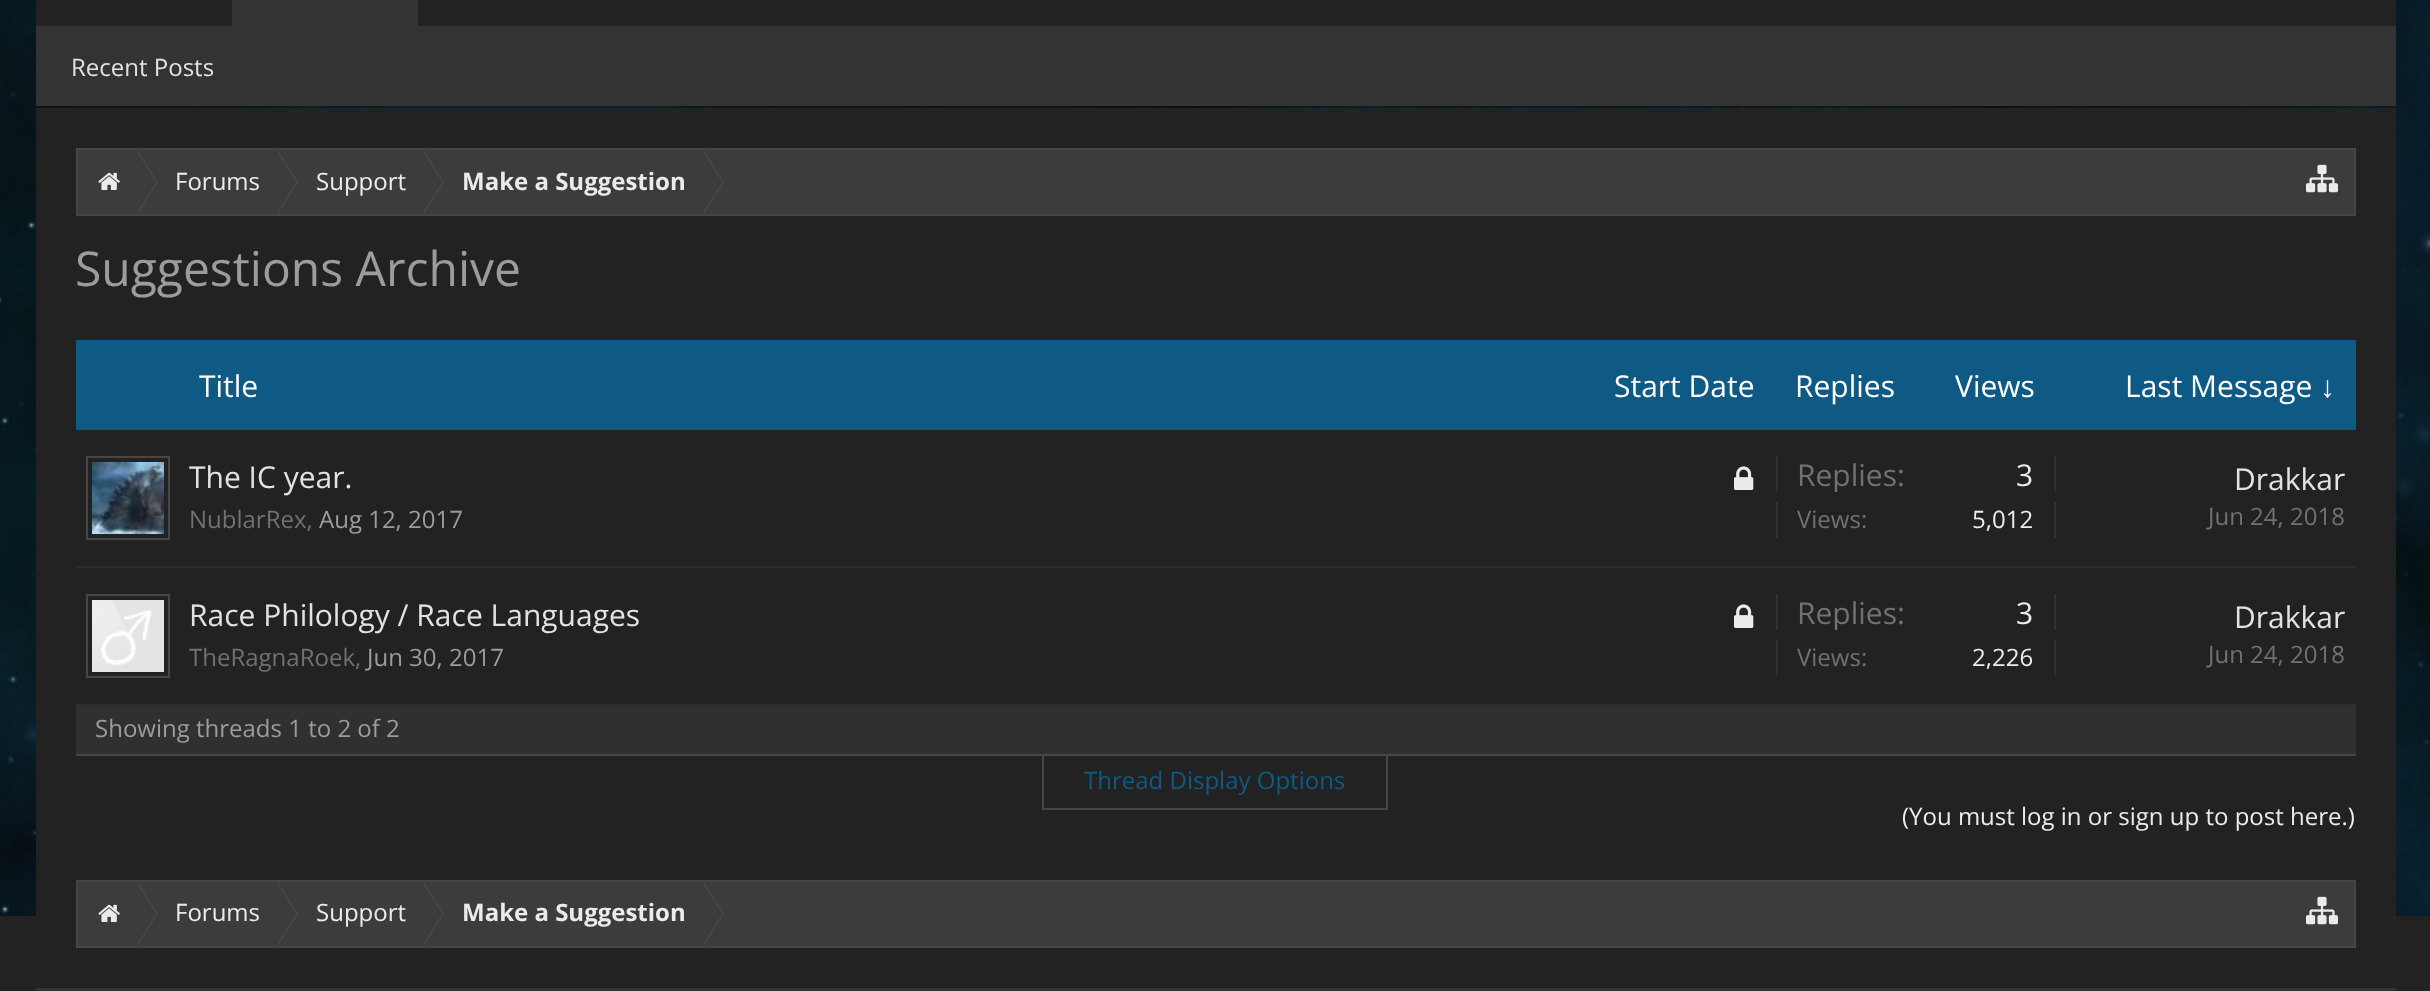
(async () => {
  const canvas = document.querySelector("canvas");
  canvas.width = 2430;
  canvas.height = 991;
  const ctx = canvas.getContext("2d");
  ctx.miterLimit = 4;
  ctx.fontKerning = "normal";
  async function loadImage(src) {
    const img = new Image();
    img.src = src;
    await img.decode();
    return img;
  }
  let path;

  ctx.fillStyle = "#ffffff";
  ctx.fillRect(0, 0, 2430, 991);
  ctx.drawImage(await loadImage("img/1.png"), 0, 0, 2430, 916);
  for (const [x, y, w, h, color] of [
    [36, 0, 2360, 26, "#222222"],
    [232, 0, 186, 26, "#333333"],
    [36, 26, 2360, 80, "#333333"],
    [36, 108, 2360, 808, "#222222"],
  ]) {
    ctx.fillStyle = color;
    ctx.fillRect(x, y, w, h);
  }
  ctx.fillStyle = "#3c3c3c";
  ctx.beginPath();
  ctx.rect(77, 149, 2278, 66);
  ctx.fill();
  ctx.strokeStyle = "#464646";
  ctx.lineWidth = 2;
  ctx.stroke();
  ctx.drawImage(await loadImage("img/2.png"), 98, 172, 22, 18);
  ctx.fillStyle = "#464646";
  path = new Path2D("M138 214V150L158 182Z");
  ctx.fill(path);
  ctx.fillStyle = "#3c3c3c";
  path = new Path2D("M136 214V150L156 182Z");
  ctx.fill(path);
  ctx.fillStyle = "#464646";
  path = new Path2D("M278 214V150L298 182Z");
  ctx.fill(path);
  ctx.fillStyle = "#3c3c3c";
  path = new Path2D("M276 214V150L296 182Z");
  ctx.fill(path);
  ctx.fillStyle = "#464646";
  path = new Path2D("M424 214V150L444 182Z");
  ctx.fill(path);
  ctx.fillStyle = "#3c3c3c";
  path = new Path2D("M422 214V150L442 182Z");
  ctx.fill(path);
  ctx.fillStyle = "#464646";
  path = new Path2D("M704 214V150L724 182Z");
  ctx.fill(path);
  ctx.fillStyle = "#3c3c3c";
  path = new Path2D("M702 214V150L722 182Z");
  ctx.fill(path);
  ctx.drawImage(await loadImage("img/3.png"), 2306, 164, 32, 29);
  ctx.fillStyle = "#0f5a84";
  ctx.fillRect(76, 340, 2280, 90);
  ctx.fillStyle = "#2d2d2d";
  ctx.fillRect(76, 566, 2280, 2);
  ctx.strokeRect(87, 457, 82, 82);
  ctx.drawImage(await loadImage("img/4.png"), 92, 462, 72, 72);
  ctx.drawImage(await loadImage("img/5.png"), 1734, 466, 20, 24);
  for (const [x, y, w, h, color] of [
    [2054, 456, 2, 36, "#303030"],
    [1776, 456, 2, 36, "#303030"],
    [2054, 502, 2, 36, "#303030"],
    [1776, 502, 2, 36, "#303030"],
    [76, 704, 2280, 2, "#2d2d2d"],
  ]) {
    ctx.fillStyle = color;
    ctx.fillRect(x, y, w, h);
  }
  ctx.strokeRect(87, 595, 82, 82);
  ctx.drawImage(await loadImage("img/6.png"), 92, 600, 72, 72);
  ctx.drawImage(await loadImage("img/5.png"), 1734, 604, 20, 24);
  for (const [x, y, w, h, color] of [
    [2054, 594, 2, 36, "#303030"],
    [1776, 594, 2, 36, "#303030"],
    [2054, 640, 2, 36, "#303030"],
    [1776, 640, 2, 36, "#303030"],
    [76, 706, 2280, 48, "#303030"],
    [76, 754, 2280, 2, "#464646"],
    [1386, 756, 2, 54, "#464646"],
    [1042, 808, 346, 2, "#464646"],
    [1042, 756, 2, 54, "#464646"],
    [0, 916, 2430, 75, "#222222"],
  ]) {
    ctx.fillStyle = color;
    ctx.fillRect(x, y, w, h);
  }
  ctx.fillStyle = "#3c3c3c";
  ctx.beginPath();
  ctx.rect(77, 881, 2278, 66);
  ctx.fill();
  ctx.stroke();
  ctx.drawImage(await loadImage("img/2.png"), 98, 904, 22, 18);
  ctx.fillStyle = "#464646";
  path = new Path2D("M138 946V882L158 914Z");
  ctx.fill(path);
  ctx.fillStyle = "#3c3c3c";
  path = new Path2D("M136 946V882L156 914Z");
  ctx.fill(path);
  ctx.fillStyle = "#464646";
  path = new Path2D("M278 946V882L298 914Z");
  ctx.fill(path);
  ctx.fillStyle = "#3c3c3c";
  path = new Path2D("M276 946V882L296 914Z");
  ctx.fill(path);
  ctx.fillStyle = "#464646";
  path = new Path2D("M424 946V882L444 914Z");
  ctx.fill(path);
  ctx.fillStyle = "#3c3c3c";
  path = new Path2D("M422 946V882L442 914Z");
  ctx.fill(path);
  ctx.fillStyle = "#464646";
  path = new Path2D("M704 946V882L724 914Z");
  ctx.fill(path);
  ctx.fillStyle = "#3c3c3c";
  path = new Path2D("M702 946V882L722 914Z");
  ctx.fill(path);
  ctx.drawImage(await loadImage("img/3.png"), 2306, 896, 32, 29);
  ctx.fillStyle = "#333333";
  ctx.fillRect(36, 988, 2360, 3);
  ctx.font = "24px Open Sans";
  ctx.fillStyle = "#e2e2e2";
  ctx.fillText("Recent Posts", 71, 76);
  ctx.fillStyle = "#ebebeb";
  ctx.fillText("Forums", 175, 190);
  ctx.fillText("Support", 316, 190);
  ctx.font = "bold 24px Open Sans";
  ctx.fillText("Make a Suggestion", 462, 190);
  ctx.font = "48px Open Sans";
  ctx.fillStyle = "#9c9c9c";
  ctx.fillText("Suggestions Archive", 75, 286);
  ctx.font = "30px Open Sans";
  ctx.fillStyle = "#ffffff";
  for (const [text, x, y] of [
    ["Title", 199, 397],
    ["Start Date", 1614, 397],
    ["Replies", 1795, 397],
    ["Views", 1955, 397],
    ["Last Message", 2125, 397],
  ]) {
    ctx.fillText(text, x, y);
  }
  ctx.font = "30px Liberation Sans";
  ctx.fillText("↓", 2320, 397);
  ctx.font = "30px Open Sans";
  ctx.fillStyle = "#e2e2e2";
  ctx.fillText("The IC year.", 189, 488);
  ctx.font = "24px Open Sans";
  ctx.fillStyle = "#717171";
  ctx.fillText("NublarRex,", 189, 528);
  ctx.fillStyle = "#9c9c9c";
  ctx.fillText("Aug 12, 2017", 319, 528);
  ctx.save();
  ctx.beginPath();
  ctx.rect(1778, 456, 276, 36);
  ctx.clip();
  ctx.font = "30px Open Sans";
  ctx.fillStyle = "#717171";
  ctx.fillText("Replies:", 1797, 486);
  ctx.restore();
  ctx.font = "30px Open Sans";
  ctx.fillStyle = "#ebebeb";
  ctx.fillText("3", 2016, 486);
  ctx.font = "24px Open Sans";
  ctx.fillStyle = "#717171";
  ctx.fillText("Views:", 1797, 528);
  ctx.fillStyle = "#ebebeb";
  ctx.fillText("5,012", 1972, 528);
  ctx.font = "30px Open Sans";
  ctx.fillStyle = "#e2e2e2";
  ctx.fillText("Drakkar", 2234, 490);
  ctx.font = "24px Open Sans";
  ctx.fillStyle = "#717171";
  ctx.fillText("Jun 24, 2018", 2208, 525);
  ctx.font = "30px Open Sans";
  ctx.fillStyle = "#e2e2e2";
  ctx.fillText("Race Philology / Race Languages", 189, 626);
  ctx.font = "24px Open Sans";
  ctx.fillStyle = "#717171";
  ctx.fillText("TheRagnaRoek,", 189, 666);
  ctx.fillStyle = "#9c9c9c";
  ctx.fillText("Jun 30, 2017", 367, 666);
  ctx.save();
  ctx.beginPath();
  ctx.rect(1778, 594, 276, 36);
  ctx.clip();
  ctx.font = "30px Open Sans";
  ctx.fillStyle = "#717171";
  ctx.fillText("Replies:", 1797, 624);
  ctx.restore();
  ctx.font = "30px Open Sans";
  ctx.fillStyle = "#ebebeb";
  ctx.fillText("3", 2016, 624);
  ctx.font = "24px Open Sans";
  ctx.fillStyle = "#717171";
  ctx.fillText("Views:", 1797, 666);
  ctx.fillStyle = "#ebebeb";
  ctx.fillText("2,226", 1972, 666);
  ctx.font = "30px Open Sans";
  ctx.fillStyle = "#e2e2e2";
  ctx.fillText("Drakkar", 2234, 628);
  ctx.font = "24px Open Sans";
  ctx.fillStyle = "#717171";
  ctx.fillText("Jun 24, 2018", 2208, 663);
  ctx.fillStyle = "#9c9c9c";
  ctx.fillText("Showing threads 1 to 2 of 2", 95, 737);
  ctx.fillStyle = "#0f5a84";
  ctx.fillText("Thread Display Options", 1084, 789);
  ctx.fillStyle = "#ebebeb";
  for (const [text, x, y] of [
    ["(You must log in or sign up to post here.)", 1902, 825],
    ["Forums", 175, 921],
    ["Support", 316, 921],
  ]) {
    ctx.fillText(text, x, y);
  }
  ctx.font = "bold 24px Open Sans";
  ctx.fillText("Make a Suggestion", 462, 921);
})();
